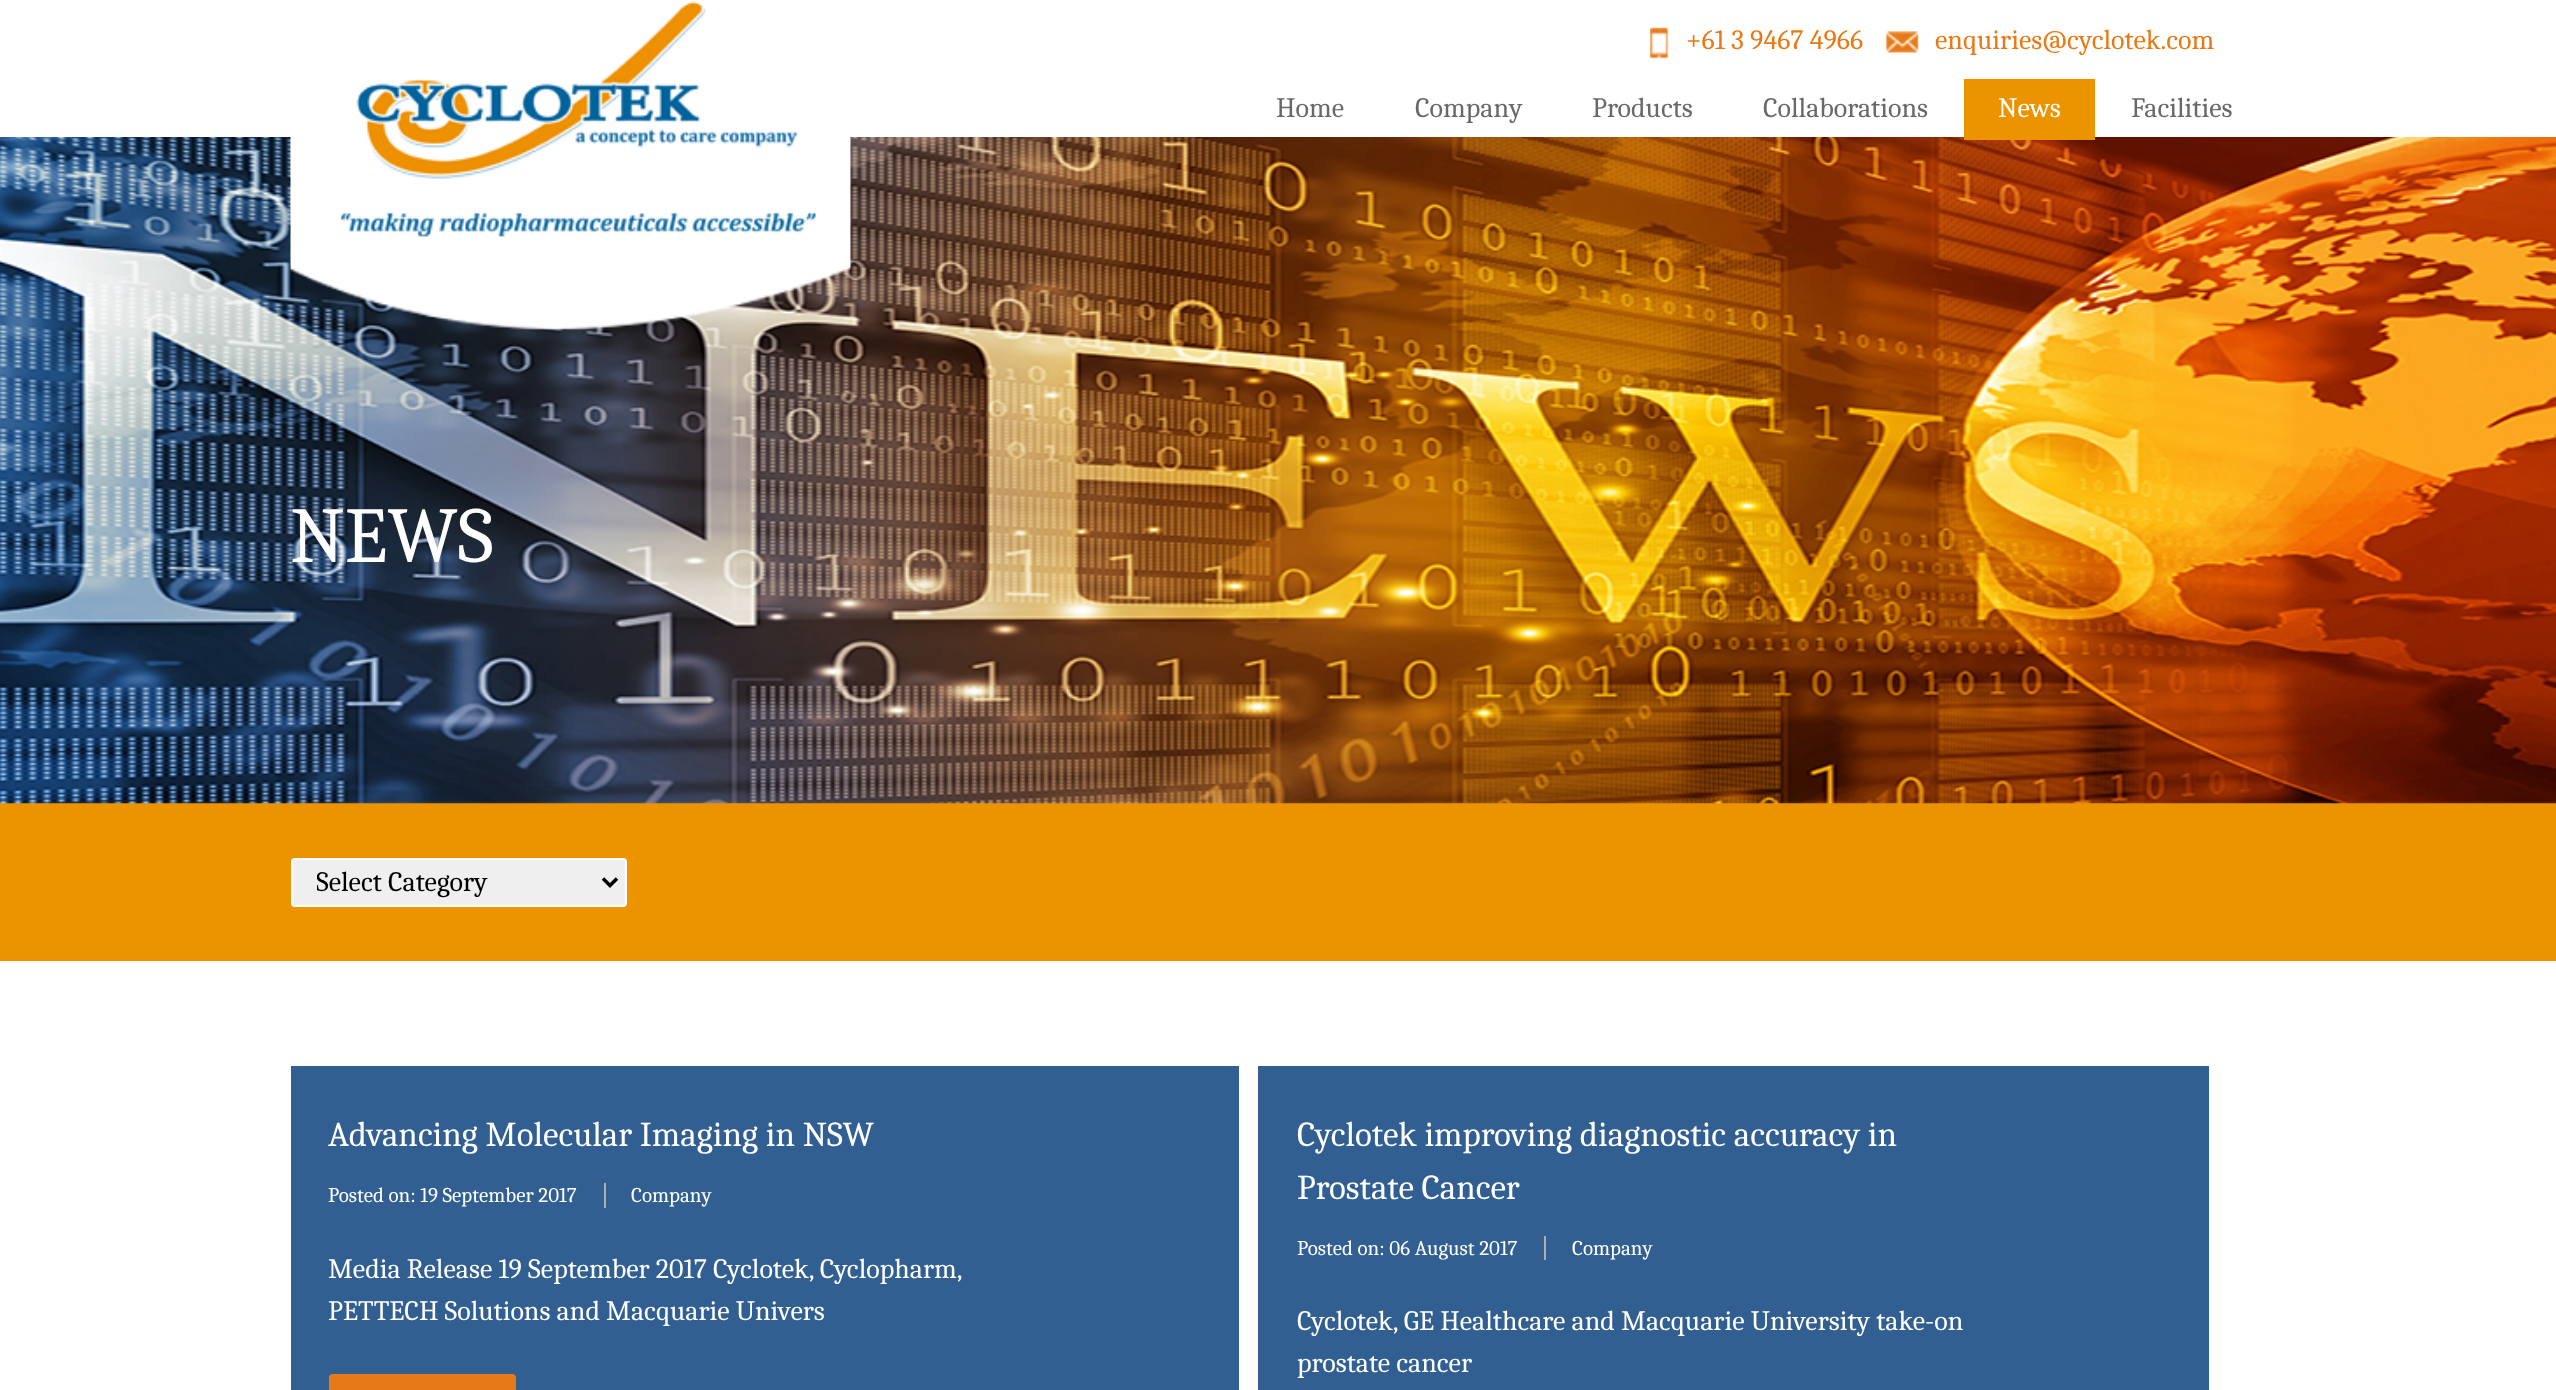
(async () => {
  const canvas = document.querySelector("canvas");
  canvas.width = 2556;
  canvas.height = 1390;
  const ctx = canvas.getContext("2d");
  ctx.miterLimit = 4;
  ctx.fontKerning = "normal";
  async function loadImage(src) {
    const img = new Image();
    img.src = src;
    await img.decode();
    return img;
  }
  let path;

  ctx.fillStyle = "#ffffff";
  ctx.fillRect(0, 0, 2556, 1390);
  ctx.fillStyle = "#ec9300";
  ctx.fillRect(0, 803, 2556, 158);
  ctx.drawImage(await loadImage("img/4.png"), 0, 137, 2556, 667);
  ctx.drawImage(await loadImage("img/1.png"), 290, 1, 561, 329);
  ctx.drawImage(await loadImage("img/2.png"), 1650, 27, 19, 32);
  ctx.drawImage(await loadImage("img/3.png"), 1886, 31, 33, 23);
  ctx.fillRect(1964, 79, 131, 61);
  ctx.fillStyle = "#efefef";
  ctx.beginPath();
  ctx.roundRect(292, 859, 334, 47, 3);
  ctx.fill();
  ctx.strokeStyle = "#ffffff";
  ctx.lineWidth = 2;
  ctx.stroke();
  path = new Path2D("M603 878.5L610 885.5L617 878.5");
  ctx.strokeStyle = "#000000";
  ctx.lineWidth = 3.5;
  ctx.stroke(path);
  ctx.fillStyle = "#315f91";
  ctx.fillRect(291, 1066, 948, 324);
  ctx.fillStyle = "#adadad";
  ctx.fillRect(604, 1183, 2, 25);
  ctx.fillStyle = "#e77a17";
  ctx.beginPath();
  ctx.roundRect(330, 1375, 185, 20, 3);
  ctx.fill();
  ctx.strokeStyle = "#e77a17";
  ctx.lineWidth = 2;
  ctx.stroke();
  ctx.fillStyle = "#315f91";
  ctx.fillRect(1258, 1066, 951, 324);
  ctx.fillStyle = "#adadad";
  ctx.fillRect(1544, 1236, 2, 24);
  ctx.font = "28px Caladea";
  ctx.fillStyle = "#e77a17";
  ctx.fillText("+61 3 9467 4966", 1686, 49);
  ctx.fillText("enquiries@cyclotek.com", 1935, 49);
  ctx.fillStyle = "#686868";
  for (const [text, x, y] of [
    ["Home", 1276, 117],
    ["Company", 1415, 117],
    ["Products", 1592, 117],
    ["Collaborations", 1763, 117],
  ]) {
    ctx.fillText(text, x, y);
  }
  ctx.fillStyle = "#ffffff";
  ctx.fillText("News", 1998, 117);
  ctx.fillStyle = "#686868";
  ctx.fillText("Facilities", 2131, 117);
  ctx.font = "79px Caladea";
  ctx.fillStyle = "#ffffff";
  ctx.fillText("NEWS", 290, 562);
  ctx.save();
  ctx.beginPath();
  ctx.rect(317, 865, 262, 35);
  ctx.clip();
  ctx.font = "28px Caladea";
  ctx.fillStyle = "#000000";
  ctx.fillText("Select Category", 316, 891);
  ctx.restore();
  ctx.font = "35px Caladea";
  ctx.fillText("Advancing Molecular Imaging in NSW", 328, 1146);
  ctx.font = "21px Caladea";
  ctx.fillText("Posted on: 19 September 2017", 328, 1202);
  ctx.fillText("Company", 631, 1202);
  ctx.font = "28px Caladea";
  ctx.fillText("Media Release 19 September 2017 Cyclotek, Cyclopharm,", 328, 1278);
  ctx.fillText("PETTECH Solutions and Macquarie Univers", 328, 1320);
  ctx.font = "35px Caladea";
  ctx.fillText("Cyclotek improving diagnostic accuracy in", 1297, 1146);
  ctx.fillText("Prostate Cancer", 1297, 1199);
  ctx.font = "21px Caladea";
  ctx.fillText("Posted on: 06 August 2017", 1297, 1255);
  ctx.fillText("Company", 1572, 1255);
  ctx.font = "28px Caladea";
  ctx.fillText("Cyclotek, GE Healthcare and Macquarie University take-on", 1297, 1330);
  ctx.fillText("prostate cancer", 1297, 1372);
})();
